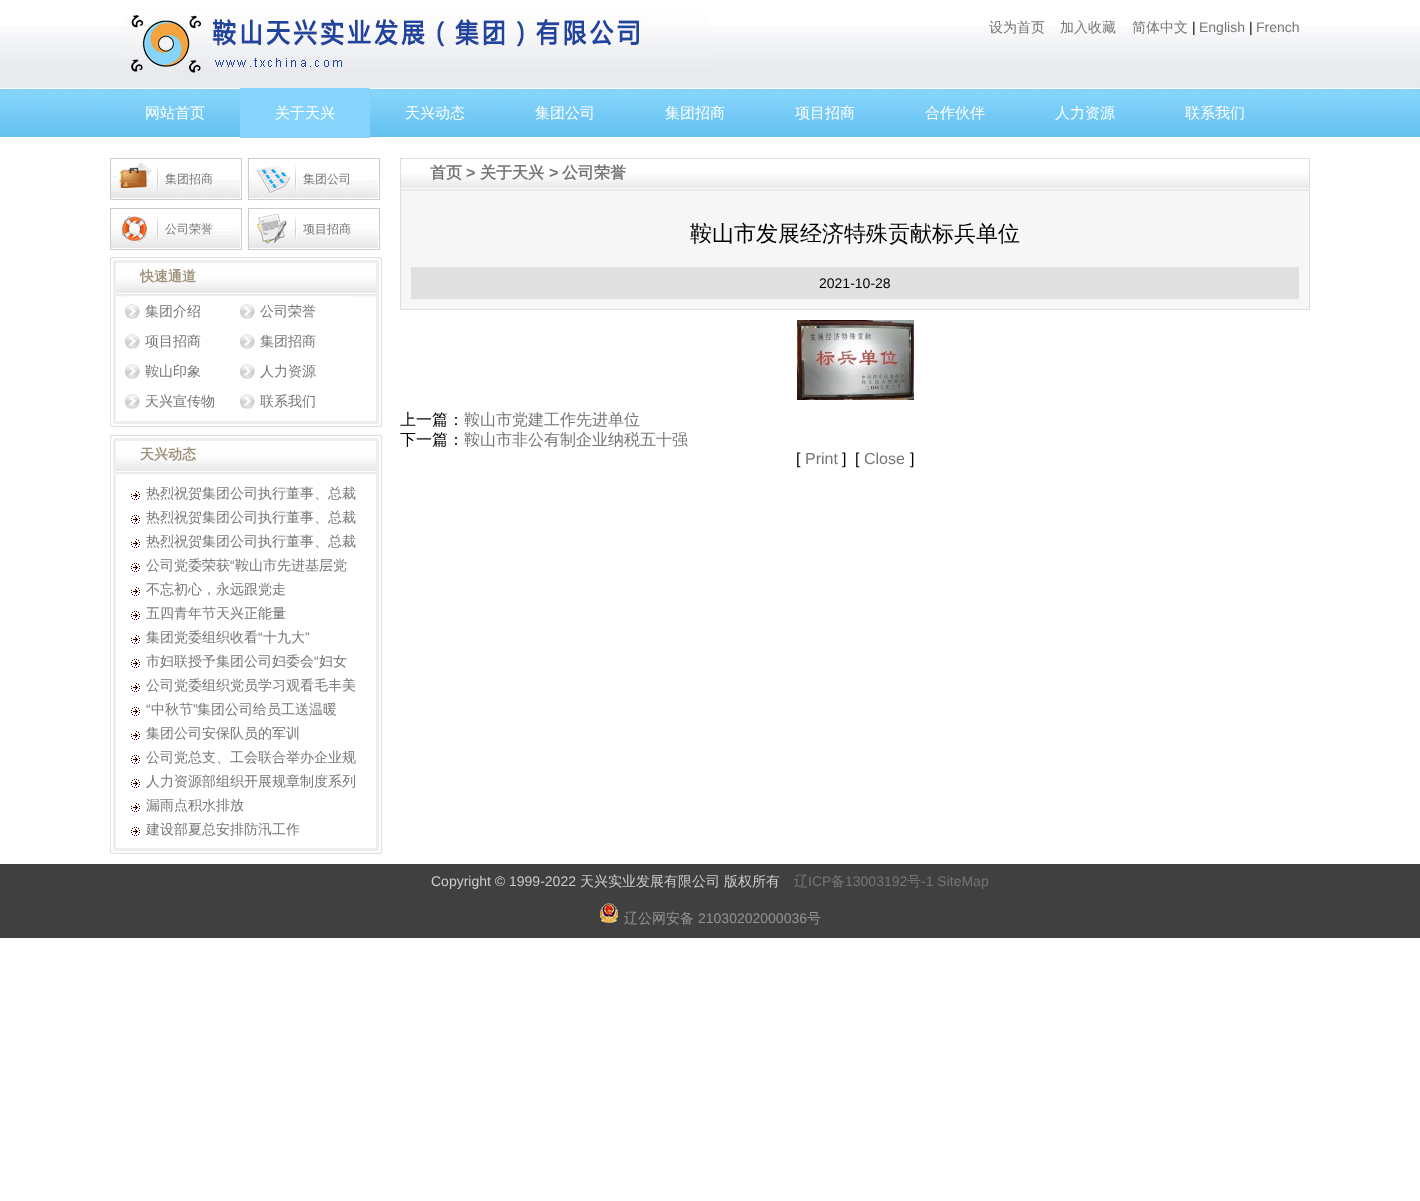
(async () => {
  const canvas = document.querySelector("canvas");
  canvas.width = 1420;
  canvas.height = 1201;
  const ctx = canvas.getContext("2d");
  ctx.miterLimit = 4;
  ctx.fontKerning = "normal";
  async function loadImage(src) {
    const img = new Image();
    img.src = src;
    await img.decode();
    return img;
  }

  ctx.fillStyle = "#ffffff";
  ctx.fillRect(0, 0, 1420, 1201);
  ctx.drawImage(await loadImage("img/1.png"), 0, 26, 1420, 111);
  ctx.drawImage(await loadImage("img/2.png"), 126, 14, 584, 74);
  ctx.fillStyle = "#86d4fb";
  ctx.fillRect(240, 88, 130, 50);
  ctx.drawImage(await loadImage("img/3.png"), 110, 158, 132, 42);
  ctx.drawImage(await loadImage("img/4.png"), 248, 158, 132, 42);
  ctx.drawImage(await loadImage("img/5.png"), 110, 208, 132, 42);
  ctx.drawImage(await loadImage("img/6.png"), 248, 208, 132, 42);
  ctx.drawImage(await loadImage("img/7.png"), 110, 257, 272, 39);
  ctx.drawImage(await loadImage("img/8.png"), 110, 296, 272, 131);
  ctx.drawImage(await loadImage("img/9.png"), 125, 304, 15, 15);
  ctx.drawImage(await loadImage("img/9.png"), 240, 304, 15, 15);
  ctx.drawImage(await loadImage("img/9.png"), 125, 334, 15, 15);
  ctx.drawImage(await loadImage("img/9.png"), 240, 334, 15, 15);
  ctx.drawImage(await loadImage("img/9.png"), 125, 364, 15, 15);
  ctx.drawImage(await loadImage("img/9.png"), 240, 364, 15, 15);
  ctx.drawImage(await loadImage("img/9.png"), 125, 394, 15, 15);
  ctx.drawImage(await loadImage("img/9.png"), 240, 394, 15, 15);
  ctx.drawImage(await loadImage("img/10.png"), 110, 435, 272, 40);
  ctx.drawImage(await loadImage("img/11.png"), 110, 475, 272, 372);
  ctx.drawImage(await loadImage("img/12.png"), 131, 491, 9, 9);
  ctx.drawImage(await loadImage("img/13.png"), 131, 515, 9, 9);
  ctx.drawImage(await loadImage("img/12.png"), 131, 539, 9, 9);
  ctx.drawImage(await loadImage("img/13.png"), 131, 563, 9, 9);
  ctx.drawImage(await loadImage("img/12.png"), 131, 587, 9, 9);
  ctx.drawImage(await loadImage("img/13.png"), 131, 611, 9, 9);
  ctx.drawImage(await loadImage("img/12.png"), 131, 635, 9, 9);
  ctx.drawImage(await loadImage("img/13.png"), 131, 659, 9, 9);
  ctx.drawImage(await loadImage("img/12.png"), 131, 683, 9, 9);
  ctx.drawImage(await loadImage("img/13.png"), 131, 707, 9, 9);
  ctx.drawImage(await loadImage("img/12.png"), 131, 731, 9, 9);
  ctx.drawImage(await loadImage("img/13.png"), 131, 755, 9, 9);
  ctx.drawImage(await loadImage("img/13.png"), 131, 779, 9, 9);
  ctx.drawImage(await loadImage("img/12.png"), 131, 803, 9, 9);
  ctx.drawImage(await loadImage("img/13.png"), 131, 827, 9, 9);
  ctx.drawImage(await loadImage("img/14.png"), 110, 847, 272, 7);
  ctx.drawImage(await loadImage("img/15.png"), 400, 158, 910, 33);
  for (const [x, y, w, h, color] of [
    [401, 191, 908, 118, "#f6f6f6"],
    [1309, 191, 1, 119, "#dfdfdf"],
    [400, 309, 910, 1, "#dfdfdf"],
    [400, 191, 1, 119, "#dfdfdf"],
    [411, 267, 888, 32, "#e0e0e0"],
  ]) {
    ctx.fillStyle = color;
    ctx.fillRect(x, y, w, h);
  }
  ctx.drawImage(await loadImage("img/16.png"), 797, 320, 117, 80);
  ctx.fillStyle = "#404040";
  ctx.fillRect(0, 864, 1420, 74);
  ctx.drawImage(await loadImage("img/17.png"), 600, 903, 18, 20);
  ctx.font = "500 14px WenQuanYi Zen Hei";
  ctx.fillStyle = "#767676";
  for (const [text, x, y] of [
    ["设为首页", 989, 32],
    ["加入收藏", 1060, 32],
    ["简体中文", 1132, 32],
  ]) {
    ctx.fillText(text, x, y);
  }
  ctx.font = "14px Liberation Sans";
  ctx.fillStyle = "#000000";
  ctx.fillText("|", 1192, 32);
  ctx.fillStyle = "#767676";
  ctx.fillText("English", 1199, 32);
  ctx.fillStyle = "#000000";
  ctx.fillText("|", 1249, 32);
  ctx.fillStyle = "#767676";
  ctx.fillText("French", 1256, 32);
  ctx.font = "500 15px WenQuanYi Zen Hei";
  ctx.fillStyle = "#ffffff";
  for (const [text, x, y] of [
    ["网站首页", 145, 118],
    ["关于天兴", 275, 118],
    ["天兴动态", 405, 118],
    ["集团公司", 535, 118],
    ["集团招商", 665, 118],
    ["项目招商", 795, 118],
    ["合作伙伴", 925, 118],
    ["人力资源", 1055, 118],
    ["联系我们", 1185, 118],
  ]) {
    ctx.fillText(text, x, y);
  }
  ctx.font = "500 12px WenQuanYi Zen Hei";
  ctx.fillStyle = "#767676";
  for (const [text, x, y] of [
    ["集团招商", 165, 183],
    ["集团公司", 303, 183],
    ["公司荣誉", 165, 233],
    ["项目招商", 303, 233],
  ]) {
    ctx.fillText(text, x, y);
  }
  ctx.font = "bold 14px WenQuanYi Zen Hei";
  ctx.fillStyle = "#9e937b";
  ctx.fillText("快速通道", 140, 281);
  ctx.font = "500 14px WenQuanYi Zen Hei";
  ctx.fillStyle = "#767676";
  for (const [text, x, y] of [
    ["集团介绍", 145, 316],
    ["公司荣誉", 260, 316],
    ["项目招商", 145, 346],
    ["集团招商", 260, 346],
    ["鞍山印象", 145, 376],
    ["人力资源", 260, 376],
    ["天兴宣传物", 145, 406],
    ["联系我们", 260, 406],
  ]) {
    ctx.fillText(text, x, y);
  }
  ctx.font = "bold 14px WenQuanYi Zen Hei";
  ctx.fillStyle = "#9e937b";
  ctx.fillText("天兴动态", 140, 459);
  ctx.font = "500 14px WenQuanYi Zen Hei";
  ctx.fillStyle = "#767676";
  for (const [text, x, y] of [
    ["热烈祝贺集团公司执行董事、总裁", 146, 498],
    ["热烈祝贺集团公司执行董事、总裁", 146, 522],
    ["热烈祝贺集团公司执行董事、总裁", 146, 546],
    ["公司党委荣获", 146, 570],
  ]) {
    ctx.fillText(text, x, y);
  }
  ctx.font = "14px Liberation Sans";
  ctx.fillText("“", 230, 570);
  ctx.font = "500 14px WenQuanYi Zen Hei";
  for (const [text, x, y] of [
    ["鞍山市先进基层党", 235, 570],
    ["不忘初心，永远跟党走", 146, 594],
    ["五四青年节天兴正能量", 146, 618],
    ["集团党委组织收看", 146, 642],
  ]) {
    ctx.fillText(text, x, y);
  }
  ctx.font = "14px Liberation Sans";
  ctx.fillText("“", 258, 642);
  ctx.font = "500 14px WenQuanYi Zen Hei";
  ctx.fillText("十九大", 263, 642);
  ctx.font = "14px Liberation Sans";
  ctx.fillText("”", 305, 642);
  ctx.font = "500 14px WenQuanYi Zen Hei";
  ctx.fillText("市妇联授予集团公司妇委会", 146, 666);
  ctx.font = "14px Liberation Sans";
  ctx.fillText("“", 314, 666);
  ctx.font = "500 14px WenQuanYi Zen Hei";
  ctx.fillText("妇女", 319, 666);
  ctx.fillText("公司党委组织党员学习观看毛丰美", 146, 690);
  ctx.font = "14px Liberation Sans";
  ctx.fillText("“", 146, 714);
  ctx.font = "500 14px WenQuanYi Zen Hei";
  ctx.fillText("中秋节", 151, 714);
  ctx.font = "14px Liberation Sans";
  ctx.fillText("”", 193, 714);
  ctx.font = "500 14px WenQuanYi Zen Hei";
  for (const [text, x, y] of [
    ["集团公司给员工送温暖", 197, 714],
    ["集团公司安保队员的军训", 146, 738],
    ["公司党总支、工会联合举办企业规", 146, 762],
    ["人力资源部组织开展规章制度系列", 146, 786],
    ["漏雨点积水排放", 146, 810],
    ["建设部夏总安排防汛工作", 146, 834],
  ]) {
    ctx.fillText(text, x, y);
  }
  ctx.font = "bold 16px WenQuanYi Zen Hei";
  ctx.fillText("首页", 430, 178);
  ctx.font = "bold 16px Liberation Sans";
  ctx.fillText(">", 466, 178);
  ctx.font = "bold 16px WenQuanYi Zen Hei";
  ctx.fillText("关于天兴", 480, 178);
  ctx.font = "bold 16px Liberation Sans";
  ctx.fillText(">", 549, 178);
  ctx.font = "bold 16px WenQuanYi Zen Hei";
  ctx.fillText("公司荣誉", 562, 178);
  ctx.font = "500 22px WenQuanYi Zen Hei";
  ctx.fillStyle = "#000000";
  ctx.fillText("鞍山市发展经济特殊贡献标兵单位", 690, 241);
  ctx.font = "14px Liberation Sans";
  ctx.fillText("2021-10-28", 819, 288);
  ctx.font = "500 16px WenQuanYi Zen Hei";
  ctx.fillText("上一篇：", 400, 425);
  ctx.fillStyle = "#767676";
  ctx.fillText("鞍山市党建工作先进单位", 464, 425);
  ctx.fillStyle = "#000000";
  ctx.fillText("下一篇：", 400, 445);
  ctx.fillStyle = "#767676";
  ctx.fillText("鞍山市非公有制企业纳税五十强", 464, 445);
  ctx.font = "16px Liberation Sans";
  ctx.fillStyle = "#000000";
  ctx.fillText("[", 796, 464);
  ctx.fillStyle = "#767676";
  ctx.fillText("Print", 805, 464);
  ctx.fillStyle = "#000000";
  ctx.fillText("]", 842, 464);
  ctx.fillText("[", 855, 464);
  ctx.fillStyle = "#767676";
  ctx.fillText("Close", 864, 464);
  ctx.fillStyle = "#000000";
  ctx.fillText("]", 910, 464);
  ctx.font = "14px Liberation Sans";
  ctx.fillStyle = "#cccccc";
  ctx.fillText("Copyright © 1999-2022", 431, 886);
  ctx.font = "500 14px WenQuanYi Zen Hei";
  ctx.fillText("天兴实业发展有限公司", 580, 886);
  ctx.fillText("版权所有", 724, 886);
  ctx.fillStyle = "#767676";
  ctx.fillText("辽", 794, 886);
  ctx.font = "14px Liberation Sans";
  ctx.fillText("ICP", 808, 886);
  ctx.font = "500 14px WenQuanYi Zen Hei";
  ctx.fillText("备", 831, 886);
  ctx.font = "14px Liberation Sans";
  ctx.fillText("13003192", 845, 886);
  ctx.font = "500 14px WenQuanYi Zen Hei";
  ctx.fillText("号", 907, 886);
  ctx.font = "14px Liberation Sans";
  ctx.fillText("-1 SiteMap", 921, 886);
  ctx.font = "500 14px WenQuanYi Zen Hei";
  ctx.fillStyle = "#939393";
  ctx.fillText("辽公网安备", 624, 923);
  ctx.font = "14px Liberation Sans";
  ctx.fillText("21030202000036", 698, 923);
  ctx.font = "500 14px WenQuanYi Zen Hei";
  ctx.fillText("号", 807, 923);
})();
